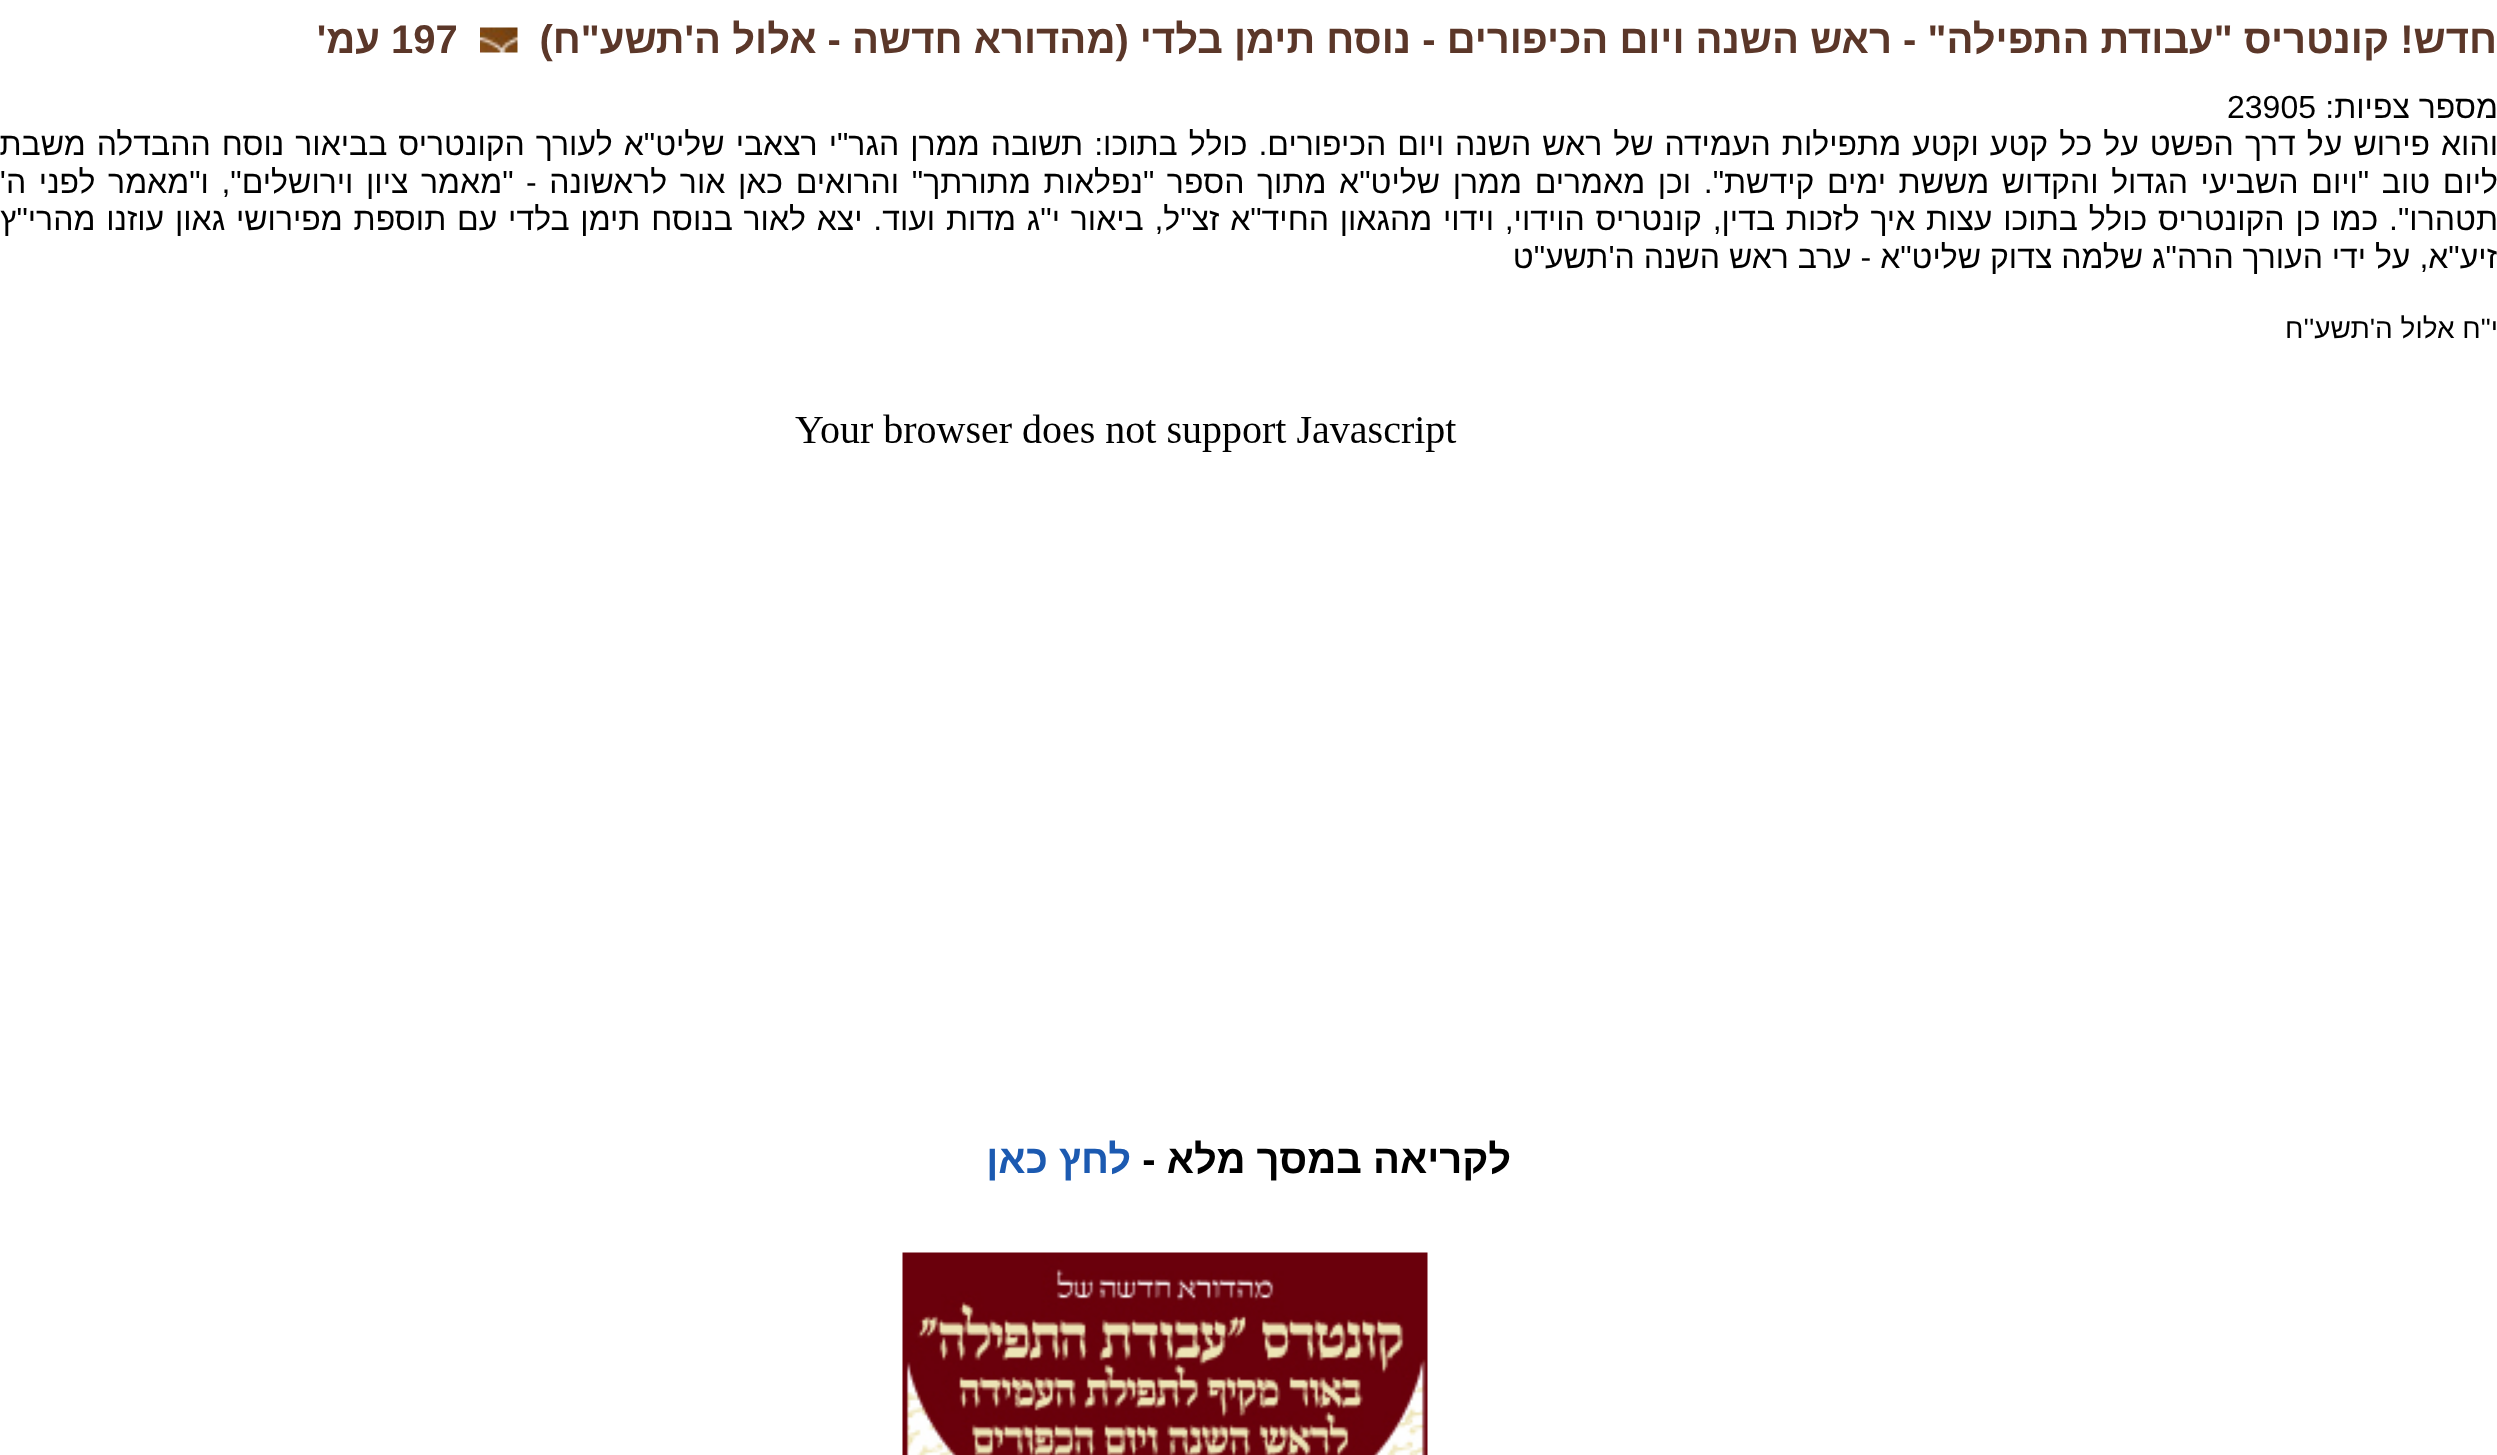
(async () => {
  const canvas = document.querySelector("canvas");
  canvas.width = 2497;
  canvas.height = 1455;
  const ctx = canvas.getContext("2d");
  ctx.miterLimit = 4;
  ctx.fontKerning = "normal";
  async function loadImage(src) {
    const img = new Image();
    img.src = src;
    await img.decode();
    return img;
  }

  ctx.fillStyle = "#ffffff";
  ctx.fillRect(0, 0, 2497, 1455);
  ctx.drawImage(await loadImage("img/1.png"), 480, 27, 38, 26);
  ctx.drawImage(await loadImage("img/2.png"), 795, 414, 662, 38);
  ctx.drawImage(await loadImage("img/3.png"), 902, 1252, 526, 203);
  ctx.direction = "rtl";
  ctx.font = "bold 40px Liberation Sans";
  ctx.fillStyle = "#5b3729";
  ctx.fillText("חדש! קונטריס \"עבודת התפילה\" - ראש השנה ויום הכיפורים - נוסח תימן בלדי (מהדורא חדשה - אלול ה'תשע\"ח)", 2497, 53);
  ctx.direction = "ltr";
  ctx.fillText("197", 391, 53);
  ctx.direction = "rtl";
  ctx.fillText("עמ'", 380, 53);
  ctx.font = "32px Liberation Sans";
  ctx.fillStyle = "#000000";
  ctx.fillText("מספר צפיות:", 2498, 118);
  ctx.direction = "ltr";
  ctx.fillText("23905", 2227, 118);
  ctx.wordSpacing = "2.1px";
  ctx.direction = "rtl";
  ctx.fillText("והוא פירוש על דרך הפשט על כל קטע וקטע מתפילות העמידה של ראש השנה ויום הכיפורים. כולל בתוכו: תשובה ממרן הגר\"י רצאבי שליט\"א לעורך הקונטריס בביאור נוסח ההבדלה משבת", 2498, 155);
  ctx.wordSpacing = "3.7px";
  ctx.fillText("ליום טוב \"ויום השביעי הגדול והקדוש מששת ימים קידשת\". וכן מאמרים ממרן שליט\"א מתוך הספר \"נפלאות מתורתך\" והרואים כאן אור לראשונה - \"מאמר ציון וירושלים\", ו\"מאמר לפני ה'", 2498, 193);
  ctx.wordSpacing = "1.85px";
  ctx.fillText("תטהרו\". כמו כן הקונטריס כולל בתוכו עצות איך לזכות בדין, קונטריס הוידוי, וידוי מהגאון החיד\"א זצ\"ל, ביאור י\"ג מדות ועוד. יצא לאור בנוסח תימן בלדי עם תוספת מפירושי גאון עוזנו מהרי\"ץ", 2498, 230);
  ctx.wordSpacing = "0px";
  ctx.fillText("זיע\"א, על ידי", 2497, 268);
  ctx.fillText("העורך הרה\"ג שלמה צדוק שליט\"א - ערב ראש השנה ה'תשע\"ט", 2323, 268);
  ctx.font = "28px Liberation Sans";
  ctx.fillText("י\"ח אלול ה'תשע''ח", 2498, 338);
  ctx.font = "bold 40px Liberation Sans";
  ctx.fillText("לקריאה במסך מלא -", 1511, 1173);
  ctx.fillStyle = "#1c5ab1";
  ctx.fillText("לחץ כאן", 1131, 1173);
})();
